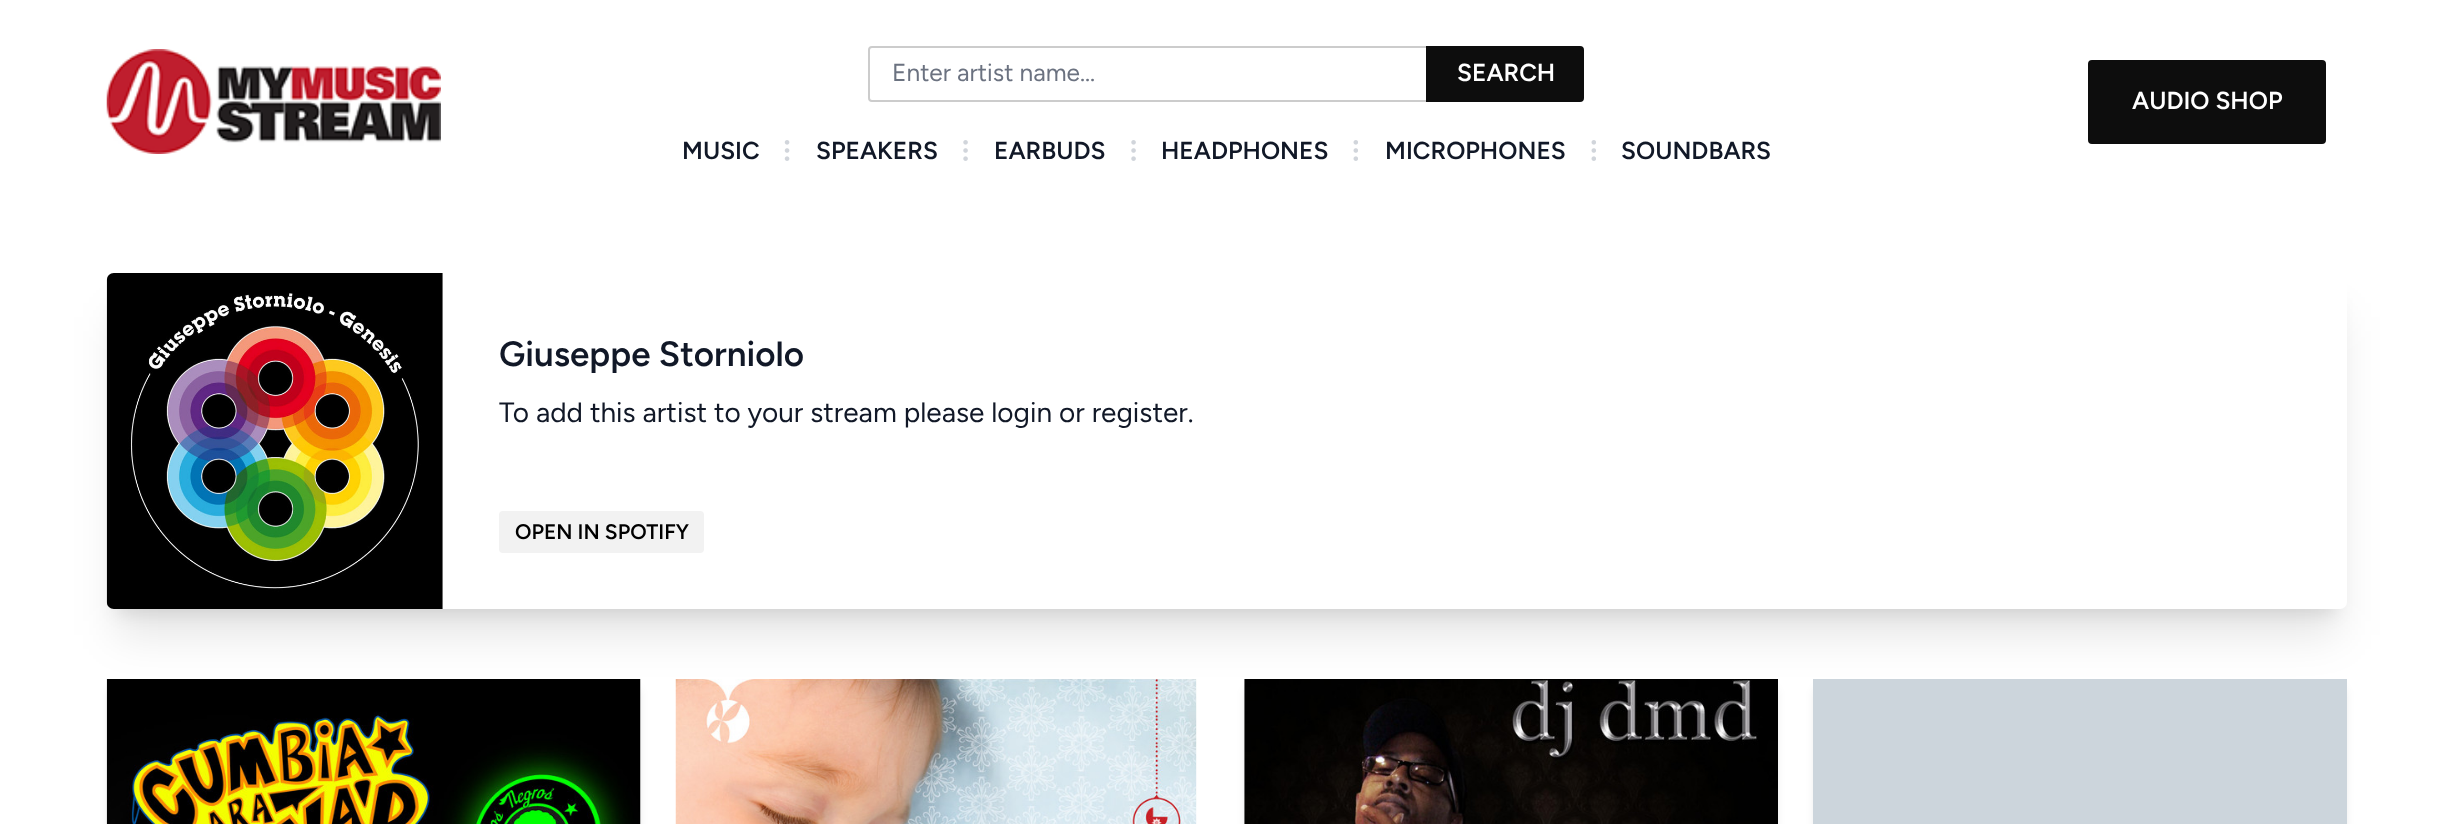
(async () => {
  const canvas = document.querySelector("canvas");
  canvas.width = 2453;
  canvas.height = 824;
  const ctx = canvas.getContext("2d");
  ctx.miterLimit = 4;
  ctx.fontKerning = "normal";
  async function loadImage(src) {
    const img = new Image();
    img.src = src;
    await img.decode();
    return img;
  }

  ctx.fillStyle = "#ffffff";
  ctx.fillRect(0, 0, 2453, 824);
  ctx.drawImage(await loadImage("img/1.png"), 106, 49, 335, 105);
  ctx.beginPath();
  ctx.roundRect(869, 47, 558, 54, [3, 0, 0, 3]);
  ctx.strokeStyle = "#cccccc";
  ctx.lineWidth = 2;
  ctx.stroke();
  ctx.fillStyle = "#0d0d0d";
  ctx.beginPath();
  ctx.roundRect(1427, 47, 156, 54, [0, 3, 3, 0]);
  ctx.fill();
  ctx.strokeStyle = "#0d0d0d";
  ctx.stroke();
  ctx.beginPath();
  ctx.roundRect(2089, 61, 236, 82, 3);
  ctx.fill();
  ctx.stroke();
  ctx.drawImage(await loadImage("img/2.png"), 784, 140, 6, 21);
  ctx.drawImage(await loadImage("img/3.png"), 963, 140, 5, 21);
  ctx.drawImage(await loadImage("img/3.png"), 1131, 140, 5, 21);
  ctx.drawImage(await loadImage("img/4.png"), 1353, 140, 5, 21);
  ctx.drawImage(await loadImage("img/4.png"), 1591, 140, 5, 21);
  ctx.fillStyle = "rgba(0, 0, 0, 0.1)";
  ctx.filter = "blur(9px)";
  ctx.beginPath();
  ctx.rect(117, 298, 2219, 315);
  ctx.fill();
  ctx.filter = "none";
  ctx.filter = "blur(22px)";
  ctx.beginPath();
  ctx.rect(116, 317, 2222, 318);
  ctx.fill();
  ctx.filter = "none";
  ctx.fillStyle = "#ffffff";
  ctx.beginPath();
  ctx.roundRect(107, 273, 2240, 336, 7);
  ctx.fill();
  ctx.drawImage(await loadImage("img/5.png"), 106, 273, 337, 336);
  ctx.fillStyle = "#f2f2f2";
  ctx.beginPath();
  ctx.roundRect(500, 512, 203, 40, 3);
  ctx.fill();
  ctx.strokeStyle = "#f2f2f2";
  ctx.stroke();
  ctx.fillStyle = "rgba(0, 0, 0, 0.1)";
  ctx.filter = "blur(5px)";
  ctx.beginPath();
  ctx.roundRect(109, 688, 530, 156, 5);
  ctx.fill();
  ctx.filter = "none";
  ctx.drawImage(await loadImage("img/6.png"), 106, 679, 535, 145);
  ctx.drawImage(await loadImage("img/7.png"), 675, 679, 522, 145);
  ctx.filter = "blur(5px)";
  ctx.beginPath();
  ctx.roundRect(1246, 688, 530, 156, 5);
  ctx.fill();
  ctx.filter = "none";
  ctx.drawImage(await loadImage("img/8.png"), 1244, 679, 534, 145);
  ctx.filter = "blur(5px)";
  ctx.beginPath();
  ctx.roundRect(1815, 688, 530, 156, 5);
  ctx.fill();
  ctx.filter = "none";
  ctx.fillStyle = "#ccd5dc";
  ctx.fillRect(1813, 679, 534, 145);
  ctx.font = "300 24.5px Figtree";
  ctx.fillStyle = "#6b7280";
  ctx.fillText("Enter artist name...", 892, 81);
  ctx.font = "600 24.5px Figtree";
  ctx.fillStyle = "#ffffff";
  ctx.fillText("SEARCH", 1457, 81);
  ctx.fillText("AUDIO SHOP", 2132, 109);
  ctx.fillStyle = "#111827";
  for (const [text, x, y] of [
    ["MUSIC", 682, 159],
    ["SPEAKERS", 816, 159],
    ["EARBUDS", 994, 159],
    ["HEADPHONES", 1161, 159],
    ["MICROPHONES", 1385, 159],
    ["SOUNDBARS", 1621, 159],
  ]) {
    ctx.fillText(text, x, y);
  }
  ctx.font = "600 35px Figtree";
  ctx.fillText("Giuseppe Storniolo", 499, 366);
  ctx.font = "300 28px Figtree";
  ctx.fillText("To add this artist to your stream please login or register.", 499, 422);
  ctx.font = "600 21px Figtree";
  ctx.fillStyle = "#000000";
  ctx.fillText("OPEN IN SPOTIFY", 515, 539);
})();
